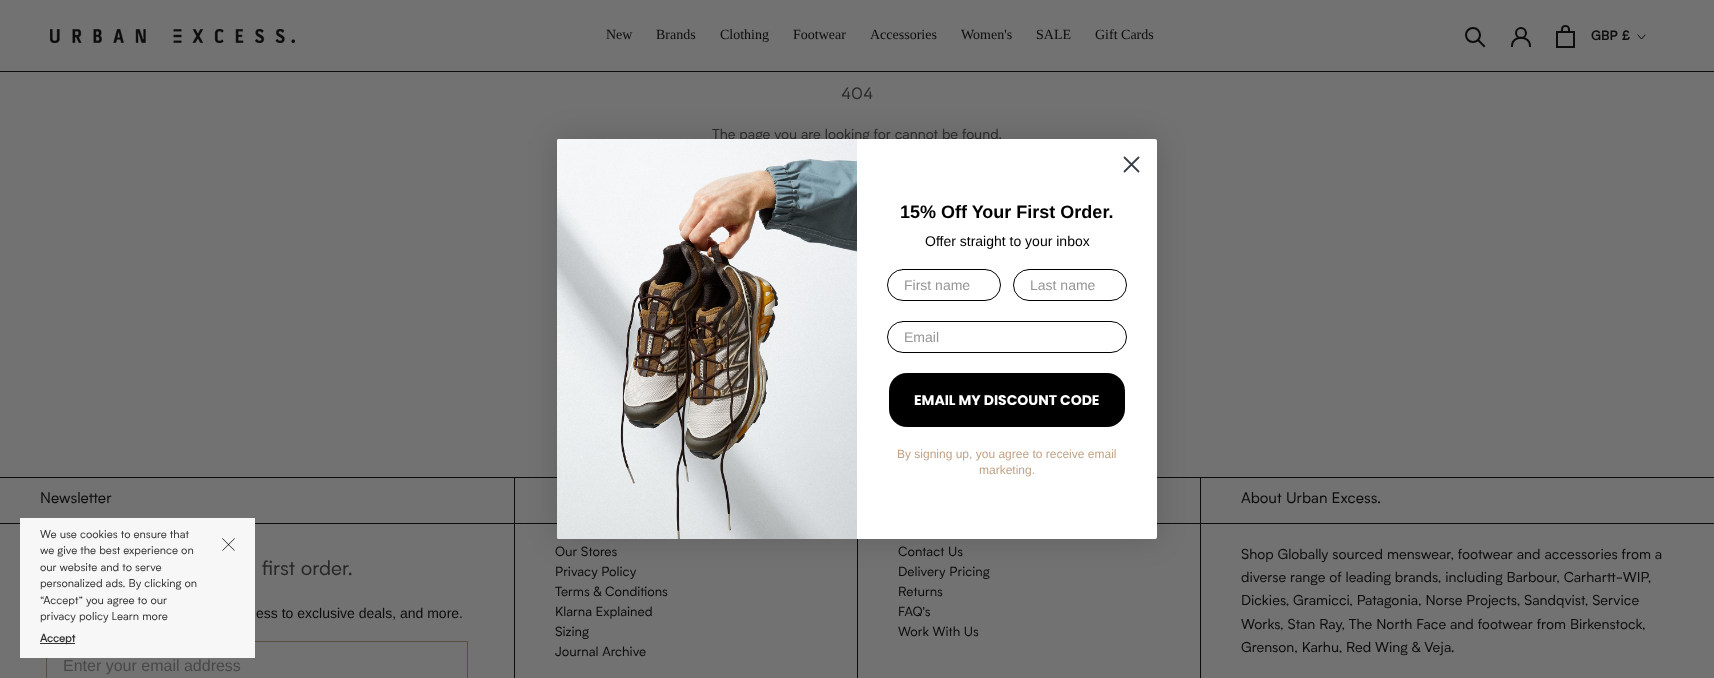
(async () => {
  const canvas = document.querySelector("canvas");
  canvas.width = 1714;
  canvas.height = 678;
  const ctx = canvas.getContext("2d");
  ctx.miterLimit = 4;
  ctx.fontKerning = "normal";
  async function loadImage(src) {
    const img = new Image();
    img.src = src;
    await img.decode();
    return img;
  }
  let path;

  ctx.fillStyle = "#727272";
  ctx.fillRect(0, 0, 1714, 678);
  ctx.fillStyle = "#0c0c0c";
  ctx.fillRect(0, 71, 1714, 1);
  ctx.drawImage(await loadImage("img/1.png"), 50, 29, 245, 14);
  path = new Path2D("M1484 46L1478.5 40.5");
  ctx.strokeStyle = "#0c0c0c";
  ctx.lineWidth = 2;
  ctx.lineCap = "square";
  ctx.stroke(path);
  ctx.beginPath();
  ctx.arc(1473, 35, 7, 0, Math.PI * 2);
  ctx.stroke();
  path = new Path2D("M1512 46C1512 35 1530 35 1530 46");
  ctx.stroke(path);
  ctx.beginPath();
  ctx.arc(1521, 33, 5, 0, Math.PI * 2);
  ctx.stroke();
  ctx.drawImage(await loadImage("img/2.png"), 1556, 25, 19, 23);
  path = new Path2D("M1645 35L1641.5 39L1638 35");
  ctx.lineWidth = 1;
  ctx.stroke(path);
  ctx.fillRect(0, 477, 1714, 1);
  ctx.fillRect(0, 523, 514, 1);
  ctx.strokeStyle = "#5a4d41";
  ctx.strokeRect(46.5, 641.5, 421, 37);
  for (const [x, y, w, h, color] of [
    [514, 478, 1, 200, "#0c0c0c"],
    [515, 523, 42, 1, "#0c0c0c"],
    [857, 539, 1, 139, "#0c0c0c"],
    [1157, 523, 43, 1, "#0c0c0c"],
    [1200, 478, 1, 200, "#0c0c0c"],
    [1201, 523, 513, 1, "#0c0c0c"],
    [20, 518, 235, 140, "#f7f7f7"],
  ]) {
    ctx.fillStyle = color;
    ctx.fillRect(x, y, w, h);
  }
  ctx.drawImage(await loadImage("img/3.png"), 222, 538, 13, 13);
  ctx.fillStyle = "#333333";
  ctx.fillRect(40, 643, 35, 1);
  ctx.fillStyle = "rgba(0, 0, 0, 0.15)";
  ctx.filter = "blur(15px)";
  ctx.beginPath();
  ctx.roundRect(557, 139, 600, 400, 2);
  ctx.fill();
  ctx.filter = "none";
  ctx.font = "14px Liberation Serif";
  ctx.fillStyle = "#0c0c0c";
  for (const [text, x, y] of [
    ["New", 606, 39],
    ["Brands", 656, 39],
    ["Clothing", 720, 39],
    ["Footwear", 793, 39],
    ["Accessories", 870, 39],
    ["Women's", 961, 39],
    ["SALE", 1036, 39],
    ["Gift Cards", 1095, 39],
  ]) {
    ctx.fillText(text, x, y);
  }
  ctx.font = "600 13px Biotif";
  ctx.fillText("GBP £", 1591, 40);
  ctx.font = "16px Biotif";
  ctx.fillStyle = "#282828";
  ctx.fillText("404", 841, 99);
  ctx.font = "14px Biotif";
  ctx.fillText("The page you are looking for cannot be found.", 712, 139);
  ctx.font = "15px Biotif";
  ctx.fillStyle = "#0c0c0c";
  ctx.fillText("Newsletter", 40, 503);
  ctx.font = "20px Biotif";
  ctx.fillStyle = "#282828";
  ctx.fillText("first order.", 262, 575);
  ctx.font = "14px Liberation Sans";
  ctx.fillStyle = "#0c0c0c";
  ctx.fillText("ess to exclusive deals, and more.", 256, 618);
  ctx.font = "16px Liberation Sans";
  ctx.fillStyle = "#474848";
  ctx.fillText("Enter your email address", 63, 671);
  ctx.font = "13px Biotif";
  ctx.fillStyle = "#0c0c0c";
  for (const [text, x, y] of [
    ["Our Stores", 555, 556],
    ["Privacy Policy", 555, 576],
    ["Terms & Conditions", 555, 596],
    ["Klarna Explained", 555, 616],
    ["Sizing", 555, 636],
    ["Journal Archive", 555, 656],
    ["Contact Us", 898, 556],
    ["Delivery Pricing", 898, 576],
    ["Returns", 898, 596],
    ["FAQ's", 898, 616],
    ["Work With Us", 898, 636],
  ]) {
    ctx.fillText(text, x, y);
  }
  ctx.font = "15px Biotif";
  ctx.fillText("About Urban Excess.", 1241, 503);
  ctx.font = "14px Biotif";
  for (const [text, x, y] of [
    ["Shop Globally sourced menswear, footwear and accessories from a", 1241, 559],
    ["diverse range of leading brands, including Barbour, Carhartt-WIP,", 1241, 582],
    ["Dickies, Gramicci, Patagonia, Norse Projects, Sandqvist, Service", 1241, 605],
    ["Works, Stan Ray, The North Face and footwear from Birkenstock,", 1241, 629],
    ["Grenson, Karhu, Red Wing & Veja.", 1241, 652],
  ]) {
    ctx.fillText(text, x, y);
  }
  ctx.font = "11px Biotif";
  ctx.fillStyle = "#333333";
  for (const [text, x, y] of [
    ["We use cookies to ensure that", 40, 538],
    ["we give the best experience on", 40, 554],
    ["our website and to serve", 40, 571],
    ["personalized ads. By clicking on", 40, 587],
    ["“Accept” you agree to our", 40, 604],
    ["privacy policy Learn more", 40, 620],
  ]) {
    ctx.fillText(text, x, y);
  }
  ctx.font = "bold 11px Biotif";
  ctx.fillText("Accept", 40, 642);
  ctx.fillStyle = "#ffffff";
  ctx.beginPath();
  ctx.roundRect(557, 139, 600, 400, 2);
  ctx.fill();
  path = new Path2D("M1124.5 157.5L1138.5 171.5M1124.5 171.5L1138.5 157.5Z");
  ctx.strokeStyle = "#373f47";
  ctx.lineWidth = 1.8;
  ctx.lineCap = "round";
  ctx.lineJoin = "round";
  ctx.stroke(path);
  ctx.drawImage(await loadImage("img/4.png"), 557, 139, 300, 400);
  ctx.font = "bold 18px Liberation Sans";
  ctx.fillStyle = "#000000";
  ctx.fillText("15% Off Your First Order.", 900, 218);
  ctx.font = "14px Liberation Sans";
  ctx.fillText("Offer straight to your inbox", 925, 246);
  ctx.beginPath();
  ctx.roundRect(887.5, 269.5, 113, 31, 15.5);
  ctx.strokeStyle = "#000000";
  ctx.lineWidth = 1;
  ctx.lineJoin = "miter";
  ctx.stroke();
  ctx.fillStyle = "#949596";
  ctx.fillText("First name", 904, 290);
  ctx.beginPath();
  ctx.roundRect(1013.5, 269.5, 113, 31, 15.5);
  ctx.stroke();
  ctx.fillText("Last name", 1030, 290);
  ctx.beginPath();
  ctx.roundRect(887.5, 321.5, 239, 31, 15.5);
  ctx.stroke();
  ctx.fillText("Email", 904, 342);
  ctx.fillStyle = "#000000";
  ctx.beginPath();
  ctx.roundRect(889, 373, 236, 54, 18);
  ctx.fill();
  ctx.font = "bold 14px Poppins";
  ctx.fillStyle = "#ffffff";
  ctx.fillText("EMAIL MY DISCOUNT CODE", 914, 405);
  ctx.font = "12px Liberation Sans";
  ctx.fillStyle = "#c2a284";
  ctx.fillText("By signing up, you agree to receive email", 897, 458);
  ctx.fillText("marketing.", 979, 474);
})();
